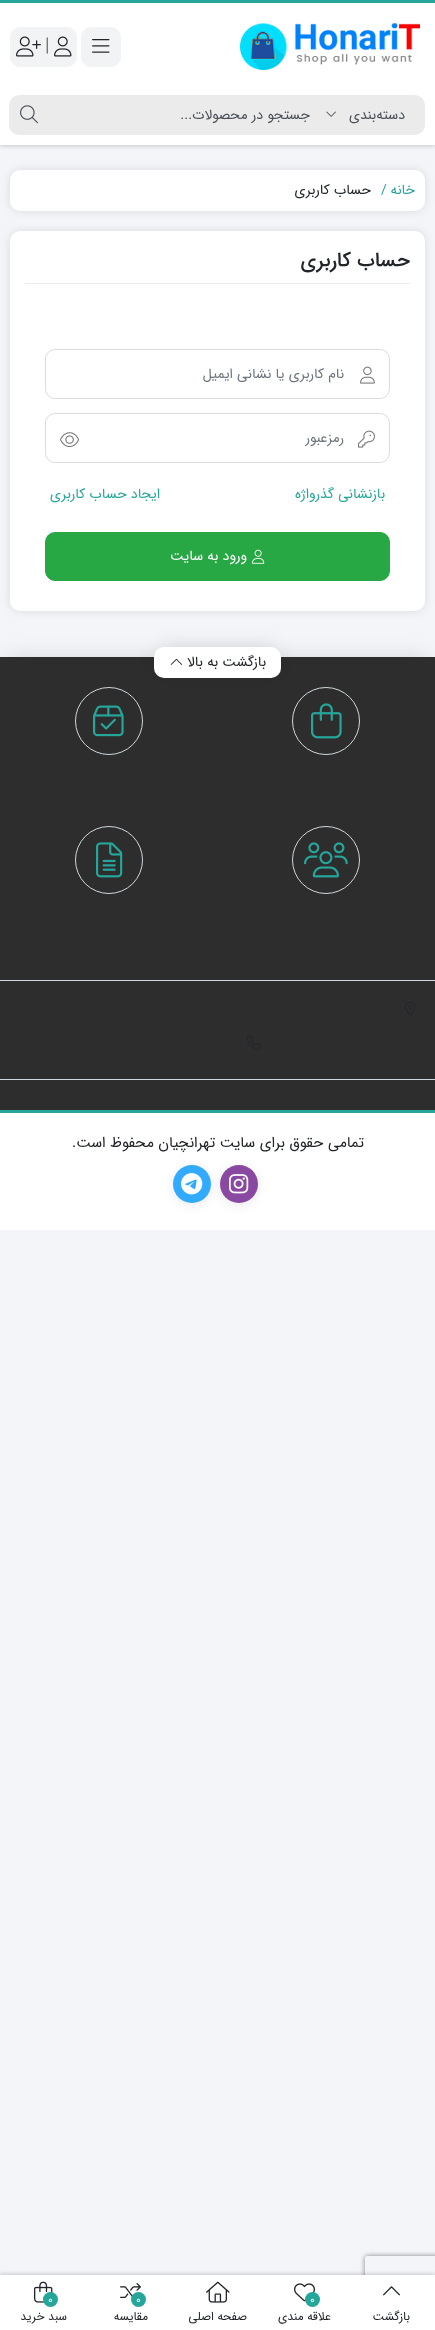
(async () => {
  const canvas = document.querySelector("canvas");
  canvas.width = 435;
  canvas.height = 2330;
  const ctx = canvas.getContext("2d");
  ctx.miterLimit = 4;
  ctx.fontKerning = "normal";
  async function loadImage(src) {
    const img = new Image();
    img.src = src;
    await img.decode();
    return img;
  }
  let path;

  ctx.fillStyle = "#f4f5f9";
  ctx.fillRect(0, 0, 435, 2330);
  ctx.fillStyle = "rgba(0, 0, 0, 0.19)";
  ctx.filter = "blur(2px)";
  ctx.beginPath();
  ctx.rect(0, 1, 435, 145);
  ctx.fill();
  ctx.filter = "none";
  ctx.fillStyle = "#ffffff";
  ctx.fillRect(0, 3, 435, 142);
  ctx.fillStyle = "#26a69a";
  ctx.fillRect(0, 0, 435, 3);
  ctx.drawImage(await loadImage("img/1.png"), 240, 23, 180, 47);
  ctx.fillStyle = "#f1f3f4";
  ctx.beginPath();
  ctx.roundRect(81.5, 27.5, 39, 39, 9.5);
  ctx.fill();
  ctx.strokeStyle = "#f1f3f4";
  ctx.stroke();
  ctx.drawImage(await loadImage("img/2.png"), 92, 39, 18, 14);
  ctx.beginPath();
  ctx.roundRect(10.5, 27.5, 66, 39, 9.5);
  ctx.fill();
  ctx.stroke();
  ctx.drawImage(await loadImage("img/3.png"), 54, 36, 18, 21);
  ctx.drawImage(await loadImage("img/4.png"), 16, 36, 25, 21);
  ctx.fillStyle = "#ebebeb";
  ctx.beginPath();
  ctx.roundRect(325, 95, 100, 40, [0, 10, 10, 0]);
  ctx.fill();
  ctx.drawImage(await loadImage("img/5.png"), 326, 111, 10, 6);
  ctx.fillRect(49, 95, 276, 40);
  ctx.beginPath();
  ctx.roundRect(9, 95, 40, 40, [10, 0, 0, 10]);
  ctx.fill();
  ctx.drawImage(await loadImage("img/6.png"), 20, 105, 18, 19);
  ctx.fillStyle = "rgba(0, 0, 0, 0.1)";
  ctx.filter = "blur(5px)";
  ctx.beginPath();
  ctx.roundRect(10, 170, 415, 41, 10);
  ctx.fill();
  ctx.filter = "none";
  ctx.fillStyle = "#ffffff";
  ctx.beginPath();
  ctx.roundRect(10, 170, 415, 41, 10);
  ctx.fill();
  ctx.fillStyle = "rgba(0, 0, 0, 0.1)";
  ctx.filter = "blur(5px)";
  ctx.beginPath();
  ctx.roundRect(10, 231, 415, 380, 10);
  ctx.fill();
  ctx.filter = "none";
  ctx.fillStyle = "#ffffff";
  ctx.beginPath();
  ctx.roundRect(10, 231, 415, 380, 10);
  ctx.fill();
  ctx.fillStyle = "#e9ecef";
  ctx.fillRect(25, 283, 385, 1);
  ctx.beginPath();
  ctx.roundRect(45.5, 349.5, 344, 49, 9.5);
  ctx.strokeStyle = "#dadce0";
  ctx.stroke();
  ctx.drawImage(await loadImage("img/7.png"), 360, 366, 15, 18);
  ctx.beginPath();
  ctx.roundRect(45.5, 413.5, 344, 49, 9.5);
  ctx.stroke();
  ctx.drawImage(await loadImage("img/8.png"), 358, 430, 17, 18);
  ctx.drawImage(await loadImage("img/9.png"), 60, 432, 20, 16);
  ctx.fillStyle = "#28a745";
  ctx.beginPath();
  ctx.roundRect(45.5, 532.5, 344, 48, 9.5);
  ctx.fill();
  ctx.strokeStyle = "#28a745";
  ctx.stroke();
  ctx.drawImage(await loadImage("img/10.png"), 252, 549, 13, 15);
  ctx.fillStyle = "rgba(0, 0, 0, 0.12)";
  ctx.filter = "blur(10px)";
  ctx.beginPath();
  ctx.rect(6, 657, 423, 441);
  ctx.fill();
  ctx.filter = "none";
  ctx.fillStyle = "#2d2d2d";
  ctx.fillRect(0, 657, 435, 453);
  ctx.fillStyle = "rgba(0, 0, 0, 0.12)";
  ctx.filter = "blur(10px)";
  ctx.beginPath();
  ctx.roundRect(160, 647, 115, 19, 4);
  ctx.fill();
  ctx.filter = "none";
  ctx.fillStyle = "#ffffff";
  ctx.beginPath();
  ctx.roundRect(154, 647, 127, 31, 10);
  ctx.fill();
  ctx.drawImage(await loadImage("img/11.png"), 170, 658, 12, 7);
  ctx.fillStyle = "#cfd8dc";
  ctx.fillRect(0, 980, 435, 1);
  ctx.beginPath();
  ctx.arc(326, 721, 33.5, 0, Math.PI * 2);
  ctx.strokeStyle = "#cfd8dc";
  ctx.stroke();
  ctx.drawImage(await loadImage("img/12.png"), 311, 703, 31, 36);
  ctx.beginPath();
  ctx.arc(109, 721, 33.5, 0, Math.PI * 2);
  ctx.stroke();
  ctx.drawImage(await loadImage("img/13.png"), 93, 705, 31, 32);
  ctx.beginPath();
  ctx.arc(326, 860, 33.5, 0, Math.PI * 2);
  ctx.stroke();
  ctx.drawImage(await loadImage("img/14.png"), 304, 842, 44, 36);
  ctx.beginPath();
  ctx.arc(109, 860, 33.5, 0, Math.PI * 2);
  ctx.stroke();
  ctx.drawImage(await loadImage("img/15.png"), 96, 842, 27, 36);
  ctx.fillRect(0, 1079, 435, 1);
  ctx.drawImage(await loadImage("img/16.png"), 405, 1002, 11, 14);
  ctx.drawImage(await loadImage("img/17.png"), 247, 1036, 14, 14);
  ctx.fillStyle = "#ffffff";
  ctx.fillRect(0, 1113, 435, 117);
  ctx.fillStyle = "#26a69a";
  ctx.fillRect(0, 1110, 435, 3);
  ctx.fillStyle = "rgba(0, 0, 0, 0.07)";
  ctx.filter = "blur(5px)";
  ctx.beginPath();
  ctx.roundRect(172, 1166, 40, 40, 20);
  ctx.fill();
  ctx.filter = "none";
  ctx.fillStyle = "#31aaff";
  ctx.beginPath();
  ctx.arc(192, 1184, 19, 0, Math.PI * 2);
  ctx.fill();
  ctx.fillStyle = "rgba(0, 0, 0, 0.07)";
  ctx.filter = "blur(5px)";
  ctx.beginPath();
  ctx.roundRect(219, 1166, 40, 40, 20);
  ctx.fill();
  ctx.filter = "none";
  ctx.fillStyle = "#8a49a1";
  ctx.beginPath();
  ctx.arc(239, 1184, 19, 0, Math.PI * 2);
  ctx.fill();
  ctx.drawImage(await loadImage("img/18.png"), 229, 1174, 20, 20);
  ctx.drawImage(await loadImage("img/19.png"), 181, 1173, 22, 22);
  ctx.save();
  path = new Path2D("M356 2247H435V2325H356ZM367 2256H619C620 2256 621 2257 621 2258V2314C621 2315 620 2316 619 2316H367C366 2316 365 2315 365 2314V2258C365 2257 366 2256 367 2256Z");
  ctx.clip(path, "evenodd");
  ctx.fillStyle = "#808080";
  ctx.filter = "blur(2.5px)";
  ctx.beginPath();
  ctx.roundRect(365, 2256, 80, 60, 2);
  ctx.fill();
  ctx.filter = "none";
  ctx.restore();
  ctx.fillStyle = "rgba(0, 0, 0, 0.19)";
  ctx.filter = "blur(2px)";
  ctx.beginPath();
  ctx.rect(0, 2274, 435, 55);
  ctx.fill();
  ctx.filter = "none";
  ctx.fillStyle = "#ffffff";
  ctx.fillRect(0, 2275, 435, 55);
  ctx.drawImage(await loadImage("img/20.png"), 383, 2286, 17, 10);
  ctx.drawImage(await loadImage("img/21.png"), 294, 2283, 21, 19);
  ctx.fillStyle = "#26a69a";
  ctx.beginPath();
  ctx.arc(312.5, 2299.5, 7.5, 0, Math.PI * 2);
  ctx.fill();
  ctx.drawImage(await loadImage("img/22.png"), 206, 2281, 24, 22);
  ctx.drawImage(await loadImage("img/23.png"), 120, 2283, 21, 15);
  ctx.beginPath();
  ctx.arc(138.5, 2299.5, 7.5, 0, Math.PI * 2);
  ctx.fill();
  ctx.drawImage(await loadImage("img/24.png"), 34, 2281, 19, 22);
  ctx.beginPath();
  ctx.arc(50.5, 2299.5, 7.5, 0, Math.PI * 2);
  ctx.fill();
  ctx.font = "19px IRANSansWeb";
  ctx.fillStyle = "#777777";
  ctx.fillText("|", 45, 51);
  ctx.direction = "rtl";
  ctx.font = "14px IRANSansWeb";
  ctx.fillStyle = "#495057";
  ctx.fillText("دسته‌بندی", 405, 119);
  ctx.fillText("جستجو در محصولات...", 310, 119);
  ctx.fillStyle = "#26a69a";
  ctx.fillText("خانه", 415, 194);
  ctx.direction = "ltr";
  ctx.fillText("/", 381, 194);
  ctx.direction = "rtl";
  ctx.fillStyle = "#212529";
  ctx.fillText("حساب کاربری", 371, 194);
  ctx.font = "500 20px IRANSansWeb";
  ctx.fillText("حساب کاربری", 410, 266);
  ctx.font = "14px IRANSansWeb";
  ctx.fillStyle = "#6c757d";
  ctx.fillText("نام کاربری یا نشانی ایمیل", 344, 378);
  ctx.fillText("رمزعبور", 344, 442);
  ctx.fillStyle = "#26a69a";
  ctx.fillText("بازنشانی گذرواژه", 385, 498);
  ctx.fillText("ایجاد حساب کاربری", 160, 498);
  ctx.fillStyle = "#ffffff";
  ctx.fillText("ورود به سایت", 247, 560);
  ctx.fillStyle = "#212529";
  ctx.fillText("بازگشت به بالا", 266, 666);
  ctx.font = "15px IRANSansWeb";
  ctx.fillText("تمامی حقوق برای سایت تهرانچیان محفوظ است.", 364, 1147);
  ctx.font = "12px IRANSansWeb";
  ctx.fillText("بازگشت", 410, 2320);
  ctx.direction = "ltr";
  ctx.font = "11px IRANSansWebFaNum";
  ctx.fillStyle = "#ffffff";
  ctx.fillText("0", 310, 2303);
  ctx.direction = "rtl";
  ctx.font = "12px IRANSansWeb";
  ctx.fillStyle = "#212529";
  ctx.fillText("علاقه مندی", 331, 2320);
  ctx.fillText("صفحه اصلی", 247, 2320);
  ctx.direction = "ltr";
  ctx.font = "11px IRANSansWebFaNum";
  ctx.fillStyle = "#ffffff";
  ctx.fillText("0", 136, 2303);
  ctx.direction = "rtl";
  ctx.font = "12px IRANSansWeb";
  ctx.fillStyle = "#212529";
  ctx.fillText("مقایسه", 148, 2320);
  ctx.direction = "ltr";
  ctx.font = "11px IRANSansWebFaNum";
  ctx.fillStyle = "#ffffff";
  ctx.fillText("0", 48, 2303);
  ctx.direction = "rtl";
  ctx.font = "12px IRANSansWeb";
  ctx.fillStyle = "#212529";
  ctx.fillText("سبد خرید", 67, 2320);
})();
